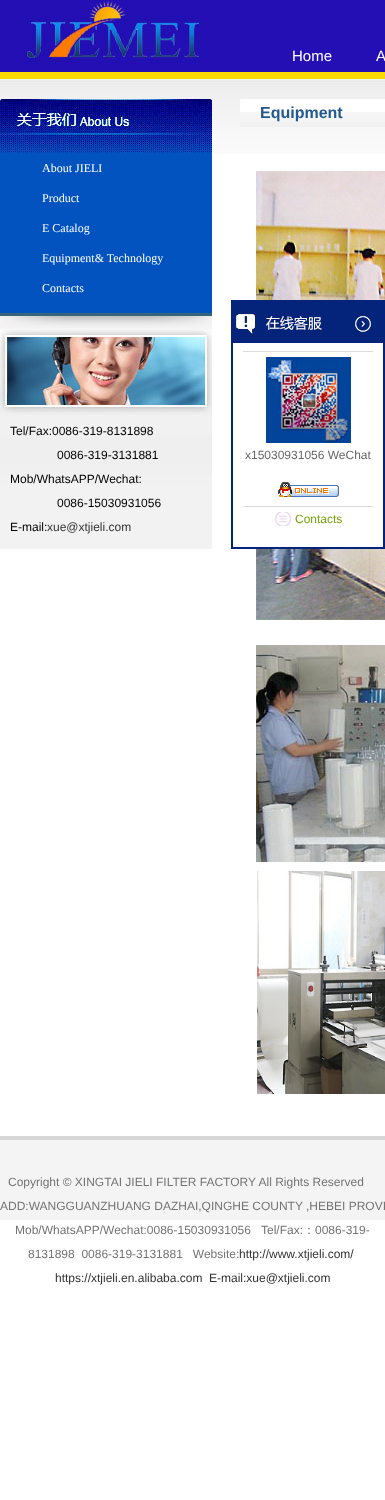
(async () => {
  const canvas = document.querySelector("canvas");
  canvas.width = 385;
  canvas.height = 1500;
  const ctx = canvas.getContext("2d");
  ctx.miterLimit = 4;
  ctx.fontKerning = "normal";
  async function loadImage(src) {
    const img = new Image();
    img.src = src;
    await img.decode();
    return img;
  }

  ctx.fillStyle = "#ffffff";
  ctx.fillRect(0, 0, 385, 1500);
  ctx.drawImage(await loadImage("img/1.png"), 0, 78, 385, 76);
  ctx.drawImage(await loadImage("img/2.png"), 0, 0, 385, 78);
  ctx.drawImage(await loadImage("img/3.png"), 240, 99, 145, 28);
  ctx.drawImage(await loadImage("img/4.png"), 256, 171, 129, 129);
  ctx.drawImage(await loadImage("img/5.png"), 256, 549, 129, 71);
  ctx.drawImage(await loadImage("img/6.png"), 256, 645, 129, 217);
  ctx.drawImage(await loadImage("img/7.png"), 257, 871, 128, 223);
  ctx.drawImage(await loadImage("img/8.png"), 0, 99, 212, 54);
  ctx.fillStyle = "#0252bf";
  ctx.fillRect(0, 153, 212, 160);
  ctx.drawImage(await loadImage("img/9.png"), 0, 313, 212, 16);
  ctx.drawImage(await loadImage("img/10.png"), 0, 329, 212, 220);
  ctx.fillStyle = "#f4f4f4";
  ctx.fillRect(0, 1140, 385, 80);
  ctx.fillStyle = "#d7d6d6";
  ctx.fillRect(0, 1136, 385, 4);
  ctx.drawImage(await loadImage("img/11.png"), 231, 300, 154, 46);
  ctx.drawImage(await loadImage("img/12.png"), 355, 316, 16, 16);
  ctx.drawImage(await loadImage("img/13.png"), 231, 346, 154, 195);
  ctx.fillStyle = "#dddddd";
  ctx.fillRect(243, 351, 130, 1);
  ctx.fillRect(243, 506, 130, 1);
  ctx.drawImage(await loadImage("img/14.png"), 266, 357, 85, 86);
  ctx.drawImage(await loadImage("img/15.png"), 278, 482, 61, 15);
  ctx.drawImage(await loadImage("img/16.png"), 275, 512, 17, 14);
  ctx.drawImage(await loadImage("img/17.png"), 231, 541, 154, 8);
  ctx.font = "15px Liberation Sans";
  ctx.fillStyle = "#ffffff";
  ctx.fillText("Home", 292, 61);
  ctx.fillText("A", 376, 61);
  ctx.font = "bold 16px Liberation Sans";
  ctx.fillStyle = "#245891";
  ctx.fillText("Equipment", 260, 118);
  ctx.font = "12px Liberation Serif";
  ctx.fillStyle = "#ffffff";
  for (const [text, x, y] of [
    ["About JIELI", 42, 172],
    ["Product", 42, 202],
    ["E Catalog", 42, 232],
    ["Equipment& Technology", 42, 262],
    ["Contacts", 42, 292],
  ]) {
    ctx.fillText(text, x, y);
  }
  ctx.font = "12px Liberation Sans";
  ctx.fillStyle = "#000000";
  for (const [text, x, y] of [
    ["Tel/Fax:0086-319-8131898", 10, 435],
    ["0086-319-3131881", 57, 459],
    ["Mob/WhatsAPP/Wechat:", 10, 483],
    ["0086-15030931056", 57, 507],
    ["E-mail:", 10, 531],
  ]) {
    ctx.fillText(text, x, y);
  }
  ctx.fillStyle = "#333333";
  ctx.fillText("xue@xtjieli.com", 47, 531);
  ctx.fillStyle = "#666666";
  ctx.fillText("x15030931056 WeChat", 245, 459);
  ctx.fillStyle = "#76a20c";
  ctx.fillText("Contacts", 295, 523);
  ctx.fillStyle = "#747474";
  for (const [text, x, y] of [
    ["Copyright © XINGTAI JIELI FILTER FACTORY All Rights Reserved", 8, 1186],
    ["ADD:WANGGUANZHUANG DAZHAI,QINGHE COUNTY ,HEBEI PROVI", 0, 1210],
    ["Mob/WhatsAPP/Wechat:0086-15030931056", 15, 1234],
    ["Tel/Fax:", 261, 1234],
  ]) {
    ctx.fillText(text, x, y);
  }
  ctx.font = "500 12px WenQuanYi Zen Hei";
  ctx.fillText("：", 303, 1234);
  ctx.font = "12px Liberation Sans";
  ctx.fillText("0086-319-", 315, 1234);
  ctx.fillText("8131898  0086-319-3131881   Website:", 28, 1258);
  ctx.fillStyle = "#333333";
  for (const [text, x, y] of [
    ["http://www.xtjieli.com/", 239, 1258],
    ["https://xtjieli.en.alibaba.com", 55, 1282],
    ["E-mail:xue@xtjieli.com", 209, 1282],
  ]) {
    ctx.fillText(text, x, y);
  }
})();
